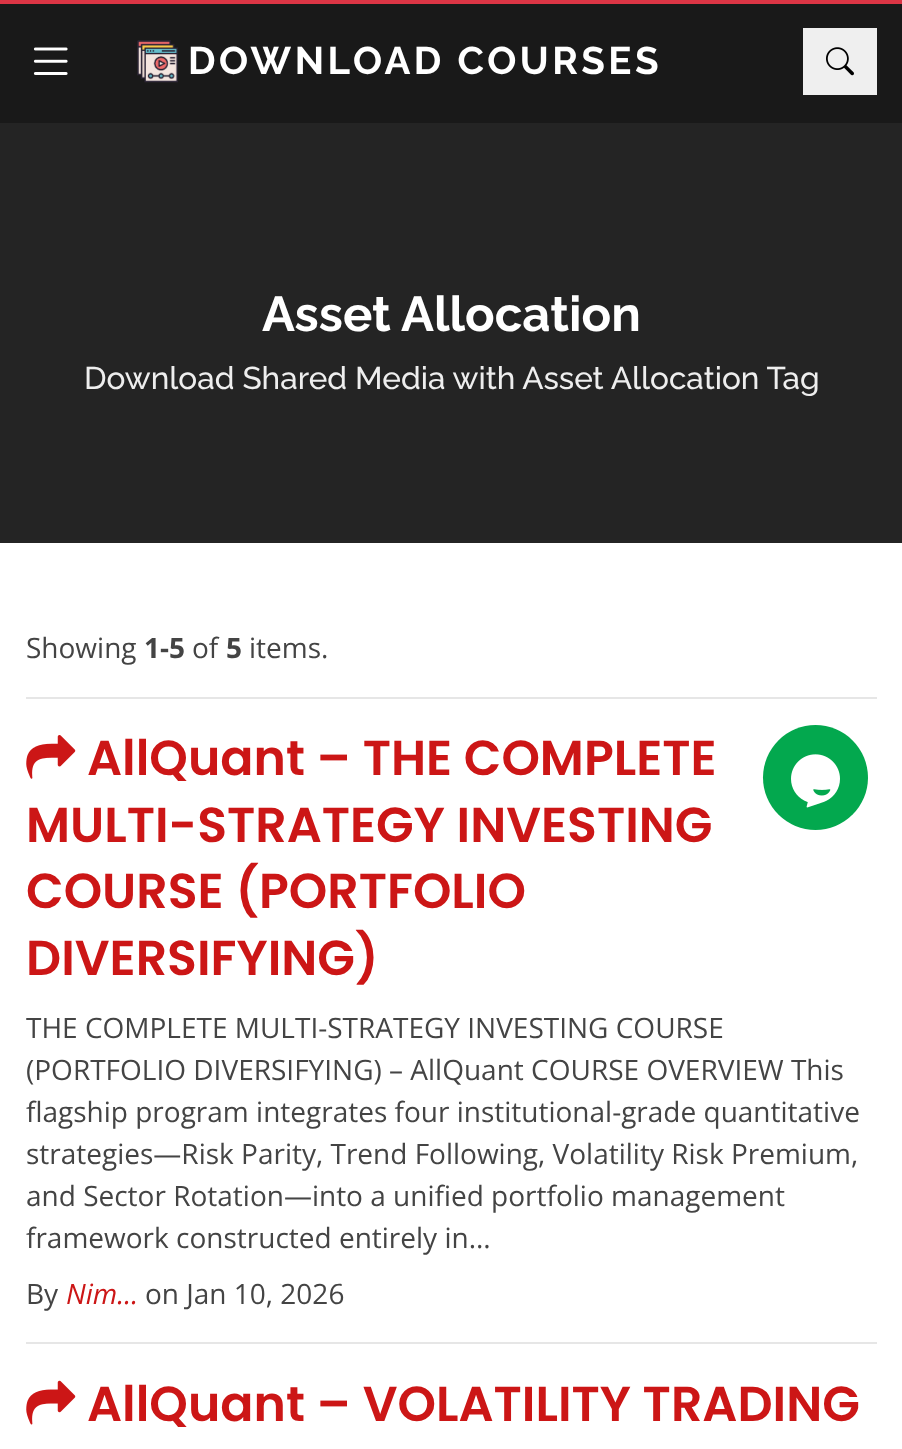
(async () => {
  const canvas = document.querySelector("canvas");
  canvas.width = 902;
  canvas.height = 1449;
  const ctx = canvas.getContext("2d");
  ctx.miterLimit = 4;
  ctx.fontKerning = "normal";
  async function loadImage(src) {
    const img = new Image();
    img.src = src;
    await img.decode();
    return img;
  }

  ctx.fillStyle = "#ffffff";
  ctx.fillRect(0, 0, 902, 1449);
  ctx.fillStyle = "#dc3545";
  ctx.fillRect(0, 0, 902, 4);
  ctx.fillStyle = "#191919";
  ctx.fillRect(0, 4, 902, 119);
  ctx.drawImage(await loadImage("img/1.png"), 33, 47, 35, 28);
  ctx.drawImage(await loadImage("img/2.png"), 137, 40, 41, 43);
  ctx.fillStyle = "#efefef";
  ctx.fillRect(803, 28, 74, 67);
  ctx.drawImage(await loadImage("img/3.png"), 826, 47, 28, 29);
  ctx.fillStyle = "#242424";
  ctx.fillRect(0, 123, 902, 420);
  ctx.fillStyle = "#e6e6e6";
  ctx.fillRect(26, 697, 851, 2);
  ctx.drawImage(await loadImage("img/4.png"), 26, 735, 50, 44);
  ctx.fillRect(26, 1342, 851, 2);
  ctx.drawImage(await loadImage("img/5.png"), 26, 1380, 50, 45);
  ctx.fillStyle = "#03a84e";
  ctx.beginPath();
  ctx.arc(815.5, 777.5, 52.5, 0, Math.PI * 2);
  ctx.fill();
  ctx.drawImage(await loadImage("img/6.png"), 791, 754, 49, 54);
  ctx.letterSpacing = "3.5px";
  ctx.font = "bold 38.5px Raleway";
  ctx.fillStyle = "#ffffff";
  ctx.fillText("DOWNLOAD COURSES", 188, 74);
  ctx.letterSpacing = "0px";
  ctx.font = "bold 49px Raleway";
  ctx.fillText("Asset Allocation", 262, 331);
  ctx.font = "500 31.5px Raleway";
  ctx.fillStyle = "#eeeeee";
  ctx.fillText("Download Shared Media with Asset Allocation Tag", 84, 389);
  ctx.font = "28px Open Sans";
  ctx.fillStyle = "#444444";
  ctx.fillText("Showing", 26, 658);
  ctx.font = "bold 28px Open Sans";
  ctx.fillText("1-5", 144, 658);
  ctx.font = "28px Open Sans";
  ctx.fillText("of", 192, 658);
  ctx.font = "bold 28px Open Sans";
  ctx.fillText("5", 226, 658);
  ctx.font = "28px Open Sans";
  ctx.fillText("items.", 249, 658);
  ctx.font = "600 49px Poppins";
  ctx.fillStyle = "#cc1616";
  for (const [text, x, y] of [
    ["AllQuant – THE COMPLETE", 87, 775],
    ["MULTI-STRATEGY INVESTING", 26, 842],
    ["COURSE (PORTFOLIO", 26, 908],
    ["DIVERSIFYING)", 26, 975],
  ]) {
    ctx.fillText(text, x, y);
  }
  ctx.font = "28px Open Sans";
  ctx.fillStyle = "#444444";
  for (const [text, x, y] of [
    ["THE COMPLETE MULTI-STRATEGY INVESTING COURSE", 26, 1038],
    ["(PORTFOLIO DIVERSIFYING) – AllQuant COURSE OVERVIEW This", 26, 1080],
    ["flagship program integrates four institutional-grade quantitative", 26, 1122],
    ["strategies—Risk Parity, Trend Following, Volatility Risk Premium,", 26, 1164],
    ["and Sector Rotation—into a unified portfolio management", 26, 1206],
    ["framework constructed entirely in...", 26, 1248],
    ["By", 26, 1304],
  ]) {
    ctx.fillText(text, x, y);
  }
  ctx.font = "italic 28px Open Sans";
  ctx.fillStyle = "#cc1616";
  ctx.fillText("Nim...", 66, 1304);
  ctx.font = "28px Open Sans";
  ctx.fillStyle = "#444444";
  ctx.fillText("on Jan 10, 2026", 145, 1304);
  ctx.font = "600 49px Poppins";
  ctx.fillStyle = "#cc1616";
  ctx.fillText("AllQuant – VOLATILITY TRADING", 87, 1421);
})();
